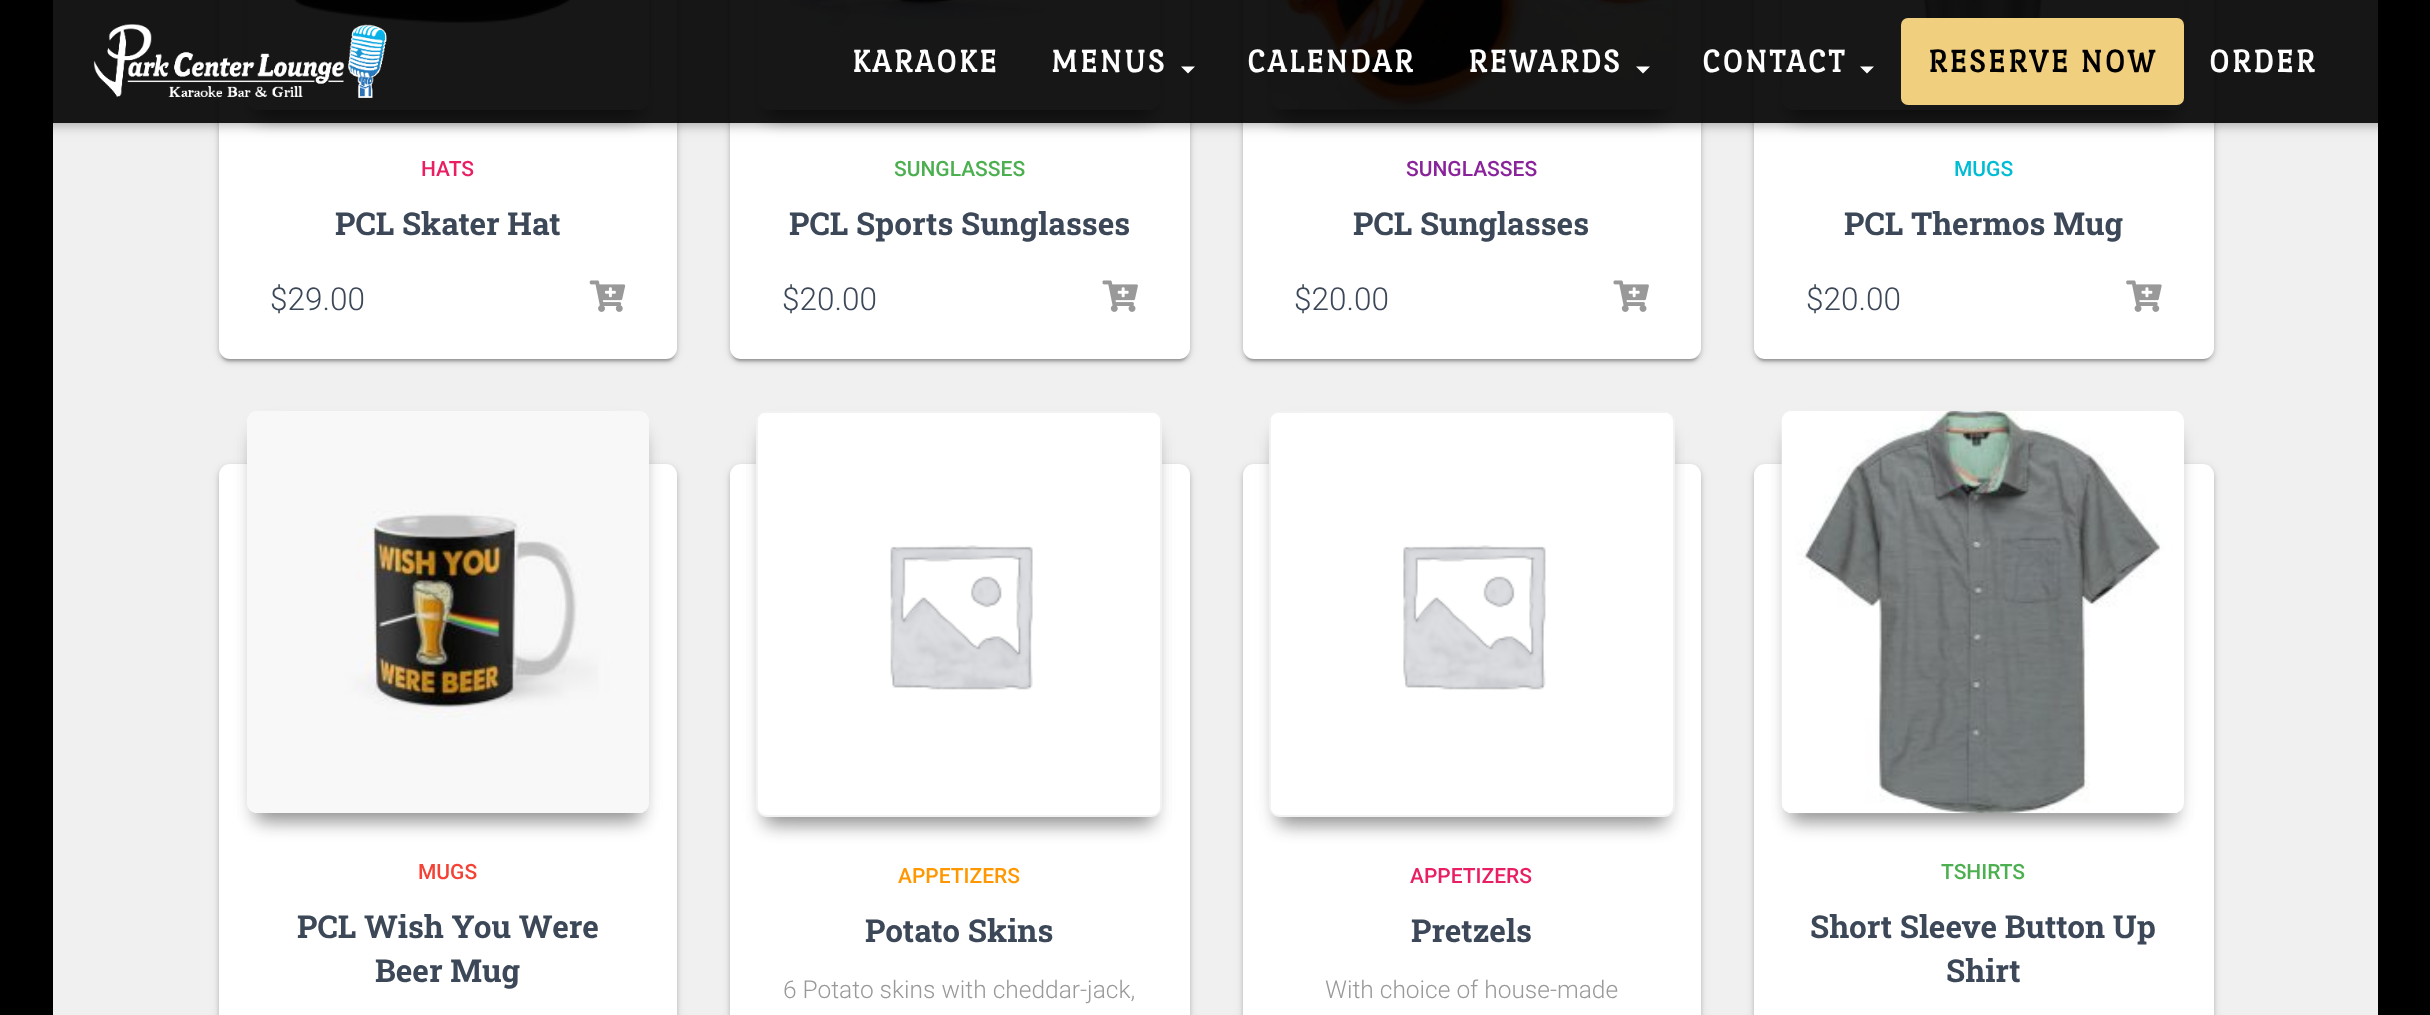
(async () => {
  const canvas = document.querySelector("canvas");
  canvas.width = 2430;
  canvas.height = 1015;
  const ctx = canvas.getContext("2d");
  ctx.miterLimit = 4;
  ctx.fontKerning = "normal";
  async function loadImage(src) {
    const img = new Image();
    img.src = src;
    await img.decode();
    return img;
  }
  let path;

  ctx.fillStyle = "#000000";
  ctx.fillRect(0, 0, 2430, 1015);
  ctx.fillStyle = "#f0f0f0";
  ctx.fillRect(53, 0, 2325, 1015);
  ctx.fillStyle = "rgba(0, 0, 0, 0.12)";
  ctx.filter = "blur(4.5px)";
  ctx.beginPath();
  ctx.roundRect(219, -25, 458, 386, 11);
  ctx.fill();
  ctx.filter = "none";
  ctx.fillStyle = "rgba(0, 0, 0, 0.2)";
  ctx.filter = "blur(1px)";
  ctx.beginPath();
  ctx.roundRect(222, -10, 452, 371, 7);
  ctx.fill();
  ctx.filter = "none";
  ctx.fillStyle = "rgba(0, 0, 0, 0.14)";
  ctx.filter = "blur(2px)";
  ctx.beginPath();
  ctx.roundRect(219, -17, 458, 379, 11);
  ctx.fill();
  ctx.filter = "none";
  ctx.fillStyle = "#ffffff";
  ctx.beginPath();
  ctx.roundRect(219, -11, 458, 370, 11);
  ctx.fill();
  ctx.save();
  path = new Path2D("M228 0H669V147H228ZM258-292H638C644-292 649-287 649-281V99C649 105 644 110 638 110H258C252 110 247 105 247 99V-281C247-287 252-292 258-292Z");
  ctx.clip(path, "evenodd");
  ctx.fillStyle = "rgba(0, 0, 0, 0.2)";
  ctx.filter = "blur(9px)";
  ctx.beginPath();
  ctx.roundRect(256, -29, 385, 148, 2);
  ctx.fill();
  ctx.filter = "none";
  ctx.restore();
  ctx.save();
  path = new Path2D("M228 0H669V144H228ZM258-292H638C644-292 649-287 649-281V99C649 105 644 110 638 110H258C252 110 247 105 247 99V-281C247-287 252-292 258-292Z");
  ctx.clip(path, "evenodd");
  ctx.fillStyle = "rgba(0, 0, 0, 0.2)";
  ctx.filter = "blur(9px)";
  ctx.beginPath();
  ctx.roundRect(256, -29, 385, 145, 2);
  ctx.fill();
  ctx.filter = "none";
  ctx.restore();
  ctx.save();
  path = new Path2D("M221 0H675V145H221ZM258-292H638C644-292 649-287 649-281V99C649 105 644 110 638 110H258C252 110 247 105 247 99V-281C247-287 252-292 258-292Z");
  ctx.clip(path, "evenodd");
  ctx.fillStyle = "rgba(0, 0, 0, 0.24)";
  ctx.filter = "blur(13px)";
  ctx.beginPath();
  ctx.rect(261, -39, 374, 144);
  ctx.fill();
  ctx.filter = "none";
  ctx.restore();
  ctx.drawImage(await loadImage("img/2.png"), 290, 0, 291, 29);
  ctx.fillStyle = "rgba(0, 0, 0, 0.12)";
  ctx.filter = "blur(4.5px)";
  ctx.beginPath();
  ctx.roundRect(730, -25, 460, 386, 11);
  ctx.fill();
  ctx.filter = "none";
  ctx.fillStyle = "rgba(0, 0, 0, 0.2)";
  ctx.filter = "blur(1px)";
  ctx.beginPath();
  ctx.roundRect(733, -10, 454, 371, 7);
  ctx.fill();
  ctx.filter = "none";
  ctx.fillStyle = "rgba(0, 0, 0, 0.14)";
  ctx.filter = "blur(2px)";
  ctx.beginPath();
  ctx.roundRect(730, -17, 460, 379, 11);
  ctx.fill();
  ctx.filter = "none";
  ctx.fillStyle = "#ffffff";
  ctx.beginPath();
  ctx.roundRect(730, -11, 460, 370, 11);
  ctx.fill();
  ctx.save();
  path = new Path2D("M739 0H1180V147H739ZM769-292H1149C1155-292 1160-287 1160-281V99C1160 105 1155 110 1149 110H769C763 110 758 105 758 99V-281C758-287 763-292 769-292Z");
  ctx.clip(path, "evenodd");
  ctx.fillStyle = "rgba(0, 0, 0, 0.2)";
  ctx.filter = "blur(9px)";
  ctx.beginPath();
  ctx.roundRect(767, -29, 385, 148, 2);
  ctx.fill();
  ctx.filter = "none";
  ctx.restore();
  ctx.save();
  path = new Path2D("M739 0H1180V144H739ZM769-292H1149C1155-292 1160-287 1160-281V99C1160 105 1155 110 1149 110H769C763 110 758 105 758 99V-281C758-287 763-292 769-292Z");
  ctx.clip(path, "evenodd");
  ctx.fillStyle = "rgba(0, 0, 0, 0.2)";
  ctx.filter = "blur(9px)";
  ctx.beginPath();
  ctx.roundRect(767, -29, 385, 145, 2);
  ctx.fill();
  ctx.filter = "none";
  ctx.restore();
  ctx.save();
  path = new Path2D("M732 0H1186V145H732ZM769-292H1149C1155-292 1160-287 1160-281V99C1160 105 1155 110 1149 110H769C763 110 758 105 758 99V-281C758-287 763-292 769-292Z");
  ctx.clip(path, "evenodd");
  ctx.fillStyle = "rgba(0, 0, 0, 0.24)";
  ctx.filter = "blur(13px)";
  ctx.beginPath();
  ctx.rect(772, -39, 374, 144);
  ctx.fill();
  ctx.filter = "none";
  ctx.restore();
  ctx.drawImage(await loadImage("img/4.png"), 778, 0, 322, 34);
  ctx.fillStyle = "rgba(0, 0, 0, 0.12)";
  ctx.filter = "blur(4.5px)";
  ctx.beginPath();
  ctx.roundRect(1243, -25, 458, 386, 11);
  ctx.fill();
  ctx.filter = "none";
  ctx.fillStyle = "rgba(0, 0, 0, 0.2)";
  ctx.filter = "blur(1px)";
  ctx.beginPath();
  ctx.roundRect(1246, -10, 452, 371, 7);
  ctx.fill();
  ctx.filter = "none";
  ctx.fillStyle = "rgba(0, 0, 0, 0.14)";
  ctx.filter = "blur(2px)";
  ctx.beginPath();
  ctx.roundRect(1243, -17, 458, 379, 11);
  ctx.fill();
  ctx.filter = "none";
  ctx.fillStyle = "#ffffff";
  ctx.beginPath();
  ctx.roundRect(1243, -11, 458, 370, 11);
  ctx.fill();
  ctx.fillStyle = "rgba(0, 0, 0, 0.2)";
  ctx.filter = "blur(9px)";
  ctx.beginPath();
  ctx.roundRect(1279, -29, 385, 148, 2);
  ctx.fill();
  ctx.filter = "none";
  ctx.filter = "blur(9px)";
  ctx.beginPath();
  ctx.roundRect(1279, -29, 385, 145, 2);
  ctx.fill();
  ctx.filter = "none";
  ctx.fillStyle = "rgba(0, 0, 0, 0.24)";
  ctx.filter = "blur(13px)";
  ctx.beginPath();
  ctx.rect(1285, -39, 374, 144);
  ctx.fill();
  ctx.filter = "none";
  ctx.drawImage(await loadImage("img/6.png"), 1271, 0, 402, 110);
  ctx.fillStyle = "rgba(0, 0, 0, 0.12)";
  ctx.filter = "blur(4.5px)";
  ctx.beginPath();
  ctx.roundRect(1754, -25, 460, 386, 11);
  ctx.fill();
  ctx.filter = "none";
  ctx.fillStyle = "rgba(0, 0, 0, 0.2)";
  ctx.filter = "blur(1px)";
  ctx.beginPath();
  ctx.roundRect(1757, -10, 453, 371, 7);
  ctx.fill();
  ctx.filter = "none";
  ctx.fillStyle = "rgba(0, 0, 0, 0.14)";
  ctx.filter = "blur(2px)";
  ctx.beginPath();
  ctx.roundRect(1754, -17, 460, 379, 11);
  ctx.fill();
  ctx.filter = "none";
  ctx.fillStyle = "#ffffff";
  ctx.beginPath();
  ctx.roundRect(1754, -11, 460, 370, 11);
  ctx.fill();
  ctx.save();
  path = new Path2D("M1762 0H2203V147H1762ZM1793-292H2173C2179-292 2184-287 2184-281V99C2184 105 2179 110 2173 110H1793C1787 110 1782 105 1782 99V-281C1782-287 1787-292 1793-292Z");
  ctx.clip(path, "evenodd");
  ctx.fillStyle = "rgba(0, 0, 0, 0.2)";
  ctx.filter = "blur(9px)";
  ctx.beginPath();
  ctx.roundRect(1790, -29, 385, 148, 2);
  ctx.fill();
  ctx.filter = "none";
  ctx.restore();
  ctx.save();
  path = new Path2D("M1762 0H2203V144H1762ZM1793-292H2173C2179-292 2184-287 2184-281V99C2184 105 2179 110 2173 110H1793C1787 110 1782 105 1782 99V-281C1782-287 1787-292 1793-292Z");
  ctx.clip(path, "evenodd");
  ctx.fillStyle = "rgba(0, 0, 0, 0.2)";
  ctx.filter = "blur(9px)";
  ctx.beginPath();
  ctx.roundRect(1790, -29, 385, 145, 2);
  ctx.fill();
  ctx.filter = "none";
  ctx.restore();
  ctx.save();
  path = new Path2D("M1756 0H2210V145H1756ZM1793-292H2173C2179-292 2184-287 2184-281V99C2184 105 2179 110 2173 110H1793C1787 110 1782 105 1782 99V-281C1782-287 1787-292 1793-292Z");
  ctx.clip(path, "evenodd");
  ctx.fillStyle = "rgba(0, 0, 0, 0.24)";
  ctx.filter = "blur(13px)";
  ctx.beginPath();
  ctx.rect(1796, -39, 374, 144);
  ctx.fill();
  ctx.filter = "none";
  ctx.restore();
  ctx.drawImage(await loadImage("img/7.png"), 1922, 0, 124, 18);
  ctx.save();
  path = new Path2D("M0 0H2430V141H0ZM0 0H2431V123H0Z");
  ctx.clip(path, "evenodd");
  ctx.fillStyle = "rgba(0, 0, 0, 0.1)";
  ctx.filter = "blur(4.5px)";
  ctx.beginPath();
  ctx.rect(4, 11, 2423, 115);
  ctx.fill();
  ctx.filter = "none";
  ctx.restore();
  ctx.save();
  path = new Path2D("M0 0H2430V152H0ZM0 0H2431V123H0Z");
  ctx.clip(path, "evenodd");
  ctx.fillStyle = "rgba(0, 0, 0, 0.12)";
  ctx.filter = "blur(9px)";
  ctx.beginPath();
  ctx.rect(0, 2, 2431, 122);
  ctx.fill();
  ctx.filter = "none";
  ctx.restore();
  ctx.save();
  path = new Path2D("M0 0H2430V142H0ZM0 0H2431V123H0Z");
  ctx.clip(path, "evenodd");
  ctx.fillStyle = "rgba(0, 0, 0, 0.42)";
  ctx.filter = "blur(9px)";
  ctx.beginPath();
  ctx.rect(11, 12, 2409, 102);
  ctx.fill();
  ctx.filter = "none";
  ctx.restore();
  ctx.fillStyle = "rgba(0, 0, 0, 0.91)";
  ctx.fillRect(53, 0, 2325, 123);
  ctx.drawImage(await loadImage("img/1.png"), 93, 24, 294, 74);
  ctx.fillStyle = "#ffffff";
  path = new Path2D("M1181 66.5H1195L1188 73.5Z");
  ctx.fill(path);
  path = new Path2D("M1636 66.5H1650L1643 73.5Z");
  ctx.fill(path);
  path = new Path2D("M1860 66.5H1874L1867 73.5Z");
  ctx.fill(path);
  ctx.fillStyle = "#f0cf7f";
  ctx.beginPath();
  ctx.roundRect(1901, 18, 283, 87, 7);
  ctx.fill();
  ctx.drawImage(await loadImage("img/3.png"), 589, 280, 37, 32);
  ctx.drawImage(await loadImage("img/5.png"), 1102, 280, 36, 32);
  ctx.drawImage(await loadImage("img/5.png"), 1613, 280, 36, 32);
  ctx.drawImage(await loadImage("img/8.png"), 2126, 280, 36, 32);
  ctx.fillStyle = "rgba(0, 0, 0, 0.12)";
  ctx.filter = "blur(4.5px)";
  ctx.beginPath();
  ctx.roundRect(219, 466, 458, 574, 11);
  ctx.fill();
  ctx.filter = "none";
  ctx.fillStyle = "rgba(0, 0, 0, 0.14)";
  ctx.filter = "blur(2px)";
  ctx.beginPath();
  ctx.roundRect(219, 467, 458, 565, 11);
  ctx.fill();
  ctx.filter = "none";
  ctx.fillStyle = "#ffffff";
  ctx.beginPath();
  ctx.roundRect(219, 464, 458, 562, 11);
  ctx.fill();
  ctx.fillStyle = "rgba(0, 0, 0, 0.2)";
  ctx.filter = "blur(9px)";
  ctx.beginPath();
  ctx.roundRect(256, 438, 385, 385, 2);
  ctx.fill();
  ctx.filter = "none";
  ctx.filter = "blur(9px)";
  ctx.beginPath();
  ctx.roundRect(256, 434, 385, 385, 2);
  ctx.fill();
  ctx.filter = "none";
  ctx.fillStyle = "rgba(0, 0, 0, 0.24)";
  ctx.filter = "blur(13px)";
  ctx.beginPath();
  ctx.rect(261, 434, 374, 375);
  ctx.fill();
  ctx.filter = "none";
  ctx.drawImage(await loadImage("img/9.png"), 247, 411, 402, 402);
  ctx.fillStyle = "rgba(0, 0, 0, 0.12)";
  ctx.filter = "blur(4.5px)";
  ctx.beginPath();
  ctx.roundRect(730, 466, 460, 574, 11);
  ctx.fill();
  ctx.filter = "none";
  ctx.fillStyle = "rgba(0, 0, 0, 0.14)";
  ctx.filter = "blur(2px)";
  ctx.beginPath();
  ctx.roundRect(730, 467, 460, 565, 11);
  ctx.fill();
  ctx.filter = "none";
  ctx.fillStyle = "#ffffff";
  ctx.beginPath();
  ctx.roundRect(730, 464, 460, 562, 11);
  ctx.fill();
  ctx.fillStyle = "rgba(0, 0, 0, 0.2)";
  ctx.filter = "blur(9px)";
  ctx.beginPath();
  ctx.roundRect(765, 438, 388, 388, 2);
  ctx.fill();
  ctx.filter = "none";
  ctx.filter = "blur(9px)";
  ctx.beginPath();
  ctx.roundRect(765, 434, 388, 389, 2);
  ctx.fill();
  ctx.filter = "none";
  ctx.fillStyle = "rgba(0, 0, 0, 0.24)";
  ctx.filter = "blur(13px)";
  ctx.beginPath();
  ctx.rect(770, 434, 378, 378);
  ctx.fill();
  ctx.filter = "none";
  ctx.beginPath();
  ctx.roundRect(757, 412, 404, 404, 10);
  ctx.strokeStyle = "#f2f2f2";
  ctx.lineWidth = 2;
  ctx.stroke();
  ctx.drawImage(await loadImage("img/10.png"), 758, 413, 402, 402);
  ctx.fillStyle = "rgba(0, 0, 0, 0.12)";
  ctx.filter = "blur(4.5px)";
  ctx.beginPath();
  ctx.roundRect(1243, 466, 458, 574, 11);
  ctx.fill();
  ctx.filter = "none";
  ctx.fillStyle = "rgba(0, 0, 0, 0.14)";
  ctx.filter = "blur(2px)";
  ctx.beginPath();
  ctx.roundRect(1243, 467, 458, 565, 11);
  ctx.fill();
  ctx.filter = "none";
  ctx.fillStyle = "#ffffff";
  ctx.beginPath();
  ctx.roundRect(1243, 464, 458, 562, 11);
  ctx.fill();
  ctx.fillStyle = "rgba(0, 0, 0, 0.2)";
  ctx.filter = "blur(9px)";
  ctx.beginPath();
  ctx.roundRect(1278, 438, 388, 388, 2);
  ctx.fill();
  ctx.filter = "none";
  ctx.filter = "blur(9px)";
  ctx.beginPath();
  ctx.roundRect(1278, 434, 388, 389, 2);
  ctx.fill();
  ctx.filter = "none";
  ctx.fillStyle = "rgba(0, 0, 0, 0.24)";
  ctx.filter = "blur(13px)";
  ctx.beginPath();
  ctx.rect(1283, 434, 378, 378);
  ctx.fill();
  ctx.filter = "none";
  ctx.beginPath();
  ctx.roundRect(1270, 412, 404, 404, 10);
  ctx.stroke();
  ctx.drawImage(await loadImage("img/11.png"), 1271, 413, 402, 402);
  ctx.fillStyle = "rgba(0, 0, 0, 0.12)";
  ctx.filter = "blur(4.5px)";
  ctx.beginPath();
  ctx.roundRect(1754, 466, 460, 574, 11);
  ctx.fill();
  ctx.filter = "none";
  ctx.fillStyle = "rgba(0, 0, 0, 0.14)";
  ctx.filter = "blur(2px)";
  ctx.beginPath();
  ctx.roundRect(1754, 467, 460, 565, 11);
  ctx.fill();
  ctx.filter = "none";
  ctx.fillStyle = "#ffffff";
  ctx.beginPath();
  ctx.roundRect(1754, 464, 460, 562, 11);
  ctx.fill();
  ctx.fillStyle = "rgba(0, 0, 0, 0.2)";
  ctx.filter = "blur(9px)";
  ctx.beginPath();
  ctx.roundRect(1790, 438, 385, 385, 2);
  ctx.fill();
  ctx.filter = "none";
  ctx.filter = "blur(9px)";
  ctx.beginPath();
  ctx.roundRect(1790, 434, 385, 385, 2);
  ctx.fill();
  ctx.filter = "none";
  ctx.fillStyle = "rgba(0, 0, 0, 0.24)";
  ctx.filter = "blur(13px)";
  ctx.beginPath();
  ctx.rect(1796, 434, 374, 375);
  ctx.fill();
  ctx.filter = "none";
  ctx.drawImage(await loadImage("img/12.png"), 1781, 410, 403, 404);
  ctx.letterSpacing = "2.6px";
  ctx.font = "bold 33.25px Port Lligat Slab";
  ctx.fillStyle = "#ffffff";
  for (const [text, x, y] of [
    ["KARAOKE", 852, 72],
    ["MENUS", 1051, 72],
    ["CALENDAR", 1247, 72],
    ["REWARDS", 1468, 72],
    ["CONTACT", 1702, 72],
  ]) {
    ctx.fillText(text, x, y);
  }
  ctx.fillStyle = "#000000";
  ctx.fillText("RESERVE NOW", 1928, 72);
  ctx.fillStyle = "#ffffff";
  ctx.fillText("ORDER", 2209, 72);
  ctx.letterSpacing = "0px";
  ctx.font = "500 21px Roboto";
  ctx.fillStyle = "#e91e63";
  ctx.fillText("HATS", 421, 176);
  ctx.font = "bold 31.5px Roboto Slab";
  ctx.fillStyle = "#3c4858";
  ctx.fillText("PCL Skater Hat", 335, 235);
  ctx.font = "300 31.5px Roboto";
  ctx.fillText("$29.00", 270, 310);
  ctx.font = "500 21px Roboto";
  ctx.fillStyle = "#4caf50";
  ctx.fillText("SUNGLASSES", 894, 176);
  ctx.font = "bold 31.5px Roboto Slab";
  ctx.fillStyle = "#3c4858";
  ctx.fillText("PCL Sports Sunglasses", 789, 235);
  ctx.font = "300 31.5px Roboto";
  ctx.fillText("$20.00", 782, 310);
  ctx.font = "500 21px Roboto";
  ctx.fillStyle = "#89229b";
  ctx.fillText("SUNGLASSES", 1406, 176);
  ctx.font = "bold 31.5px Roboto Slab";
  ctx.fillStyle = "#3c4858";
  ctx.fillText("PCL Sunglasses", 1353, 235);
  ctx.font = "300 31.5px Roboto";
  ctx.fillText("$20.00", 1294, 310);
  ctx.font = "500 21px Roboto";
  ctx.fillStyle = "#00bcd4";
  ctx.fillText("MUGS", 1954, 176);
  ctx.font = "bold 31.5px Roboto Slab";
  ctx.fillStyle = "#3c4858";
  ctx.fillText("PCL Thermos Mug", 1844, 235);
  ctx.font = "300 31.5px Roboto";
  ctx.fillText("$20.00", 1806, 310);
  ctx.font = "500 21px Roboto";
  ctx.fillStyle = "#f44336";
  ctx.fillText("MUGS", 418, 879);
  ctx.font = "bold 31.5px Roboto Slab";
  ctx.fillStyle = "#3c4858";
  ctx.fillText("PCL Wish You Were", 297, 938);
  ctx.fillText("Beer Mug", 375, 982);
  ctx.font = "500 21px Roboto";
  ctx.fillStyle = "#ff9800";
  ctx.fillText("APPETIZERS", 898, 883);
  ctx.font = "bold 31.5px Roboto Slab";
  ctx.fillStyle = "#3c4858";
  ctx.fillText("Potato Skins", 865, 942);
  ctx.font = "300 24.5px Roboto";
  ctx.fillStyle = "#999999";
  ctx.fillText("6 Potato skins with cheddar-jack,", 783, 998);
  ctx.font = "500 21px Roboto";
  ctx.fillStyle = "#e91e63";
  ctx.fillText("APPETIZERS", 1410, 883);
  ctx.font = "bold 31.5px Roboto Slab";
  ctx.fillStyle = "#3c4858";
  ctx.fillText("Pretzels", 1411, 942);
  ctx.font = "300 24.5px Roboto";
  ctx.fillStyle = "#999999";
  ctx.fillText("With choice of house-made", 1325, 998);
  ctx.font = "500 21px Roboto";
  ctx.fillStyle = "#4caf50";
  ctx.fillText("TSHIRTS", 1941, 879);
  ctx.font = "bold 31.5px Roboto Slab";
  ctx.fillStyle = "#3c4858";
  ctx.fillText("Short Sleeve Button Up", 1810, 938);
  ctx.fillText("Shirt", 1946, 982);
})();
